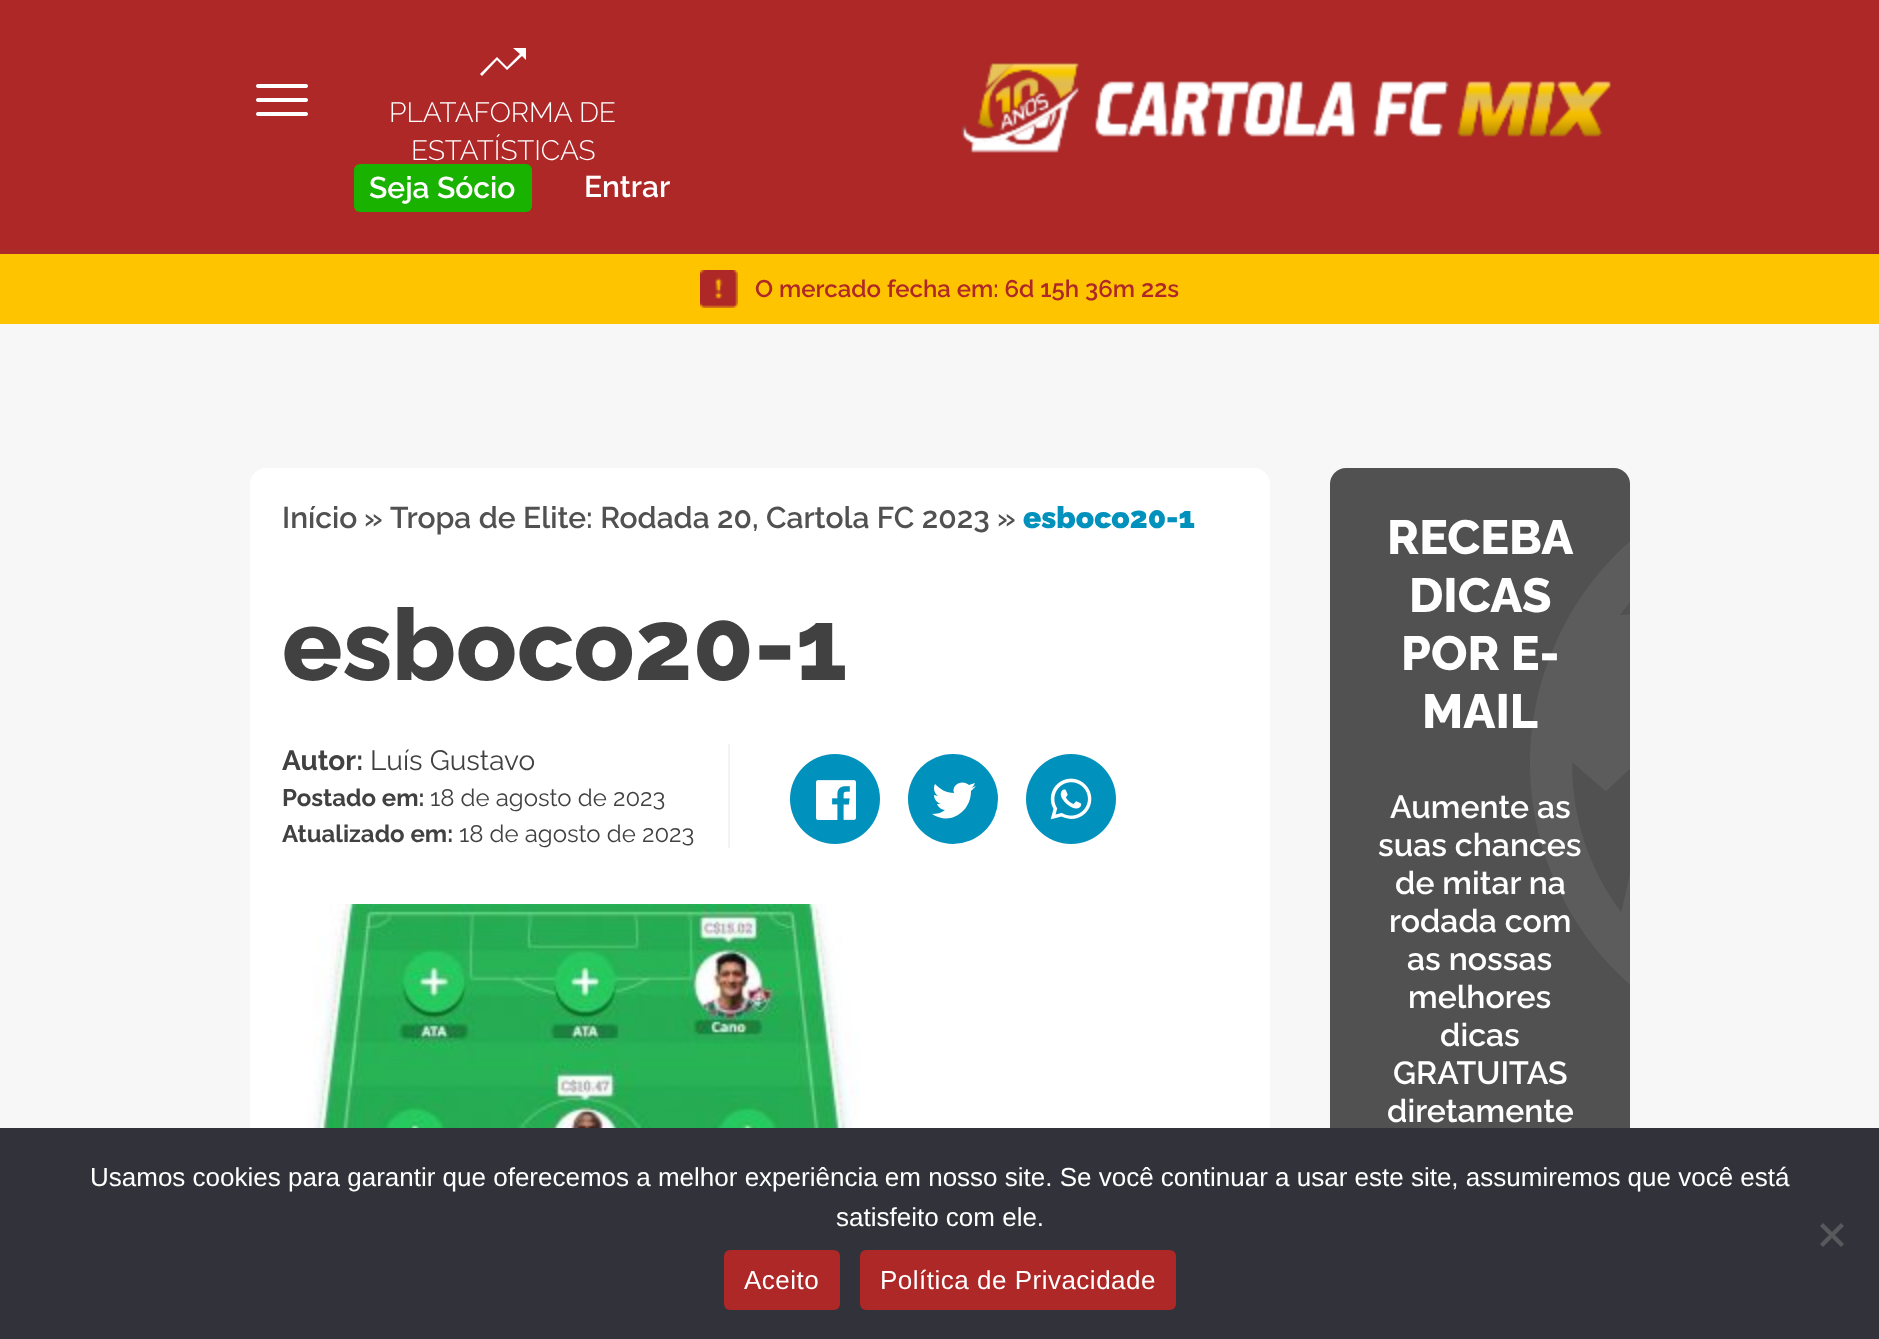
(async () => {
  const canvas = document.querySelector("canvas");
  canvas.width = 1879;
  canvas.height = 1339;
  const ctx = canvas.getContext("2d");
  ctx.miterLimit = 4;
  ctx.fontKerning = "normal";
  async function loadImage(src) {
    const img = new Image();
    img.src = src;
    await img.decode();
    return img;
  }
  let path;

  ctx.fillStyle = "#f7f7f7";
  ctx.fillRect(0, 0, 1879, 1339);
  ctx.fillStyle = "#ae2828";
  ctx.fillRect(0, 0, 1879, 254);
  ctx.drawImage(await loadImage("img/1.png"), 256, 84, 52, 32);
  ctx.save();
  ctx.beginPath();
  ctx.rect(480, 48, 46, 28);
  ctx.clip();
  ctx.fillStyle = "#ffffff";
  path = new Path2D("M513 48L520 54L507 67L497 57L480 74L482 76L497 60L507 70L522 56L528 62V48Z");
  ctx.fill(path);
  ctx.restore();
  ctx.drawImage(await loadImage("img/2.png"), 961, 62, 650, 91);
  ctx.fillStyle = "#1ab200";
  ctx.beginPath();
  ctx.roundRect(354, 164, 178, 48, 6);
  ctx.fill();
  ctx.fillStyle = "#ffc400";
  ctx.fillRect(0, 254, 1879, 70);
  ctx.drawImage(await loadImage("img/3.png"), 700, 270, 38, 38);
  ctx.fillStyle = "#ffffff";
  ctx.beginPath();
  ctx.roundRect(250, 468, 1020, 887, 16);
  ctx.fill();
  ctx.fillStyle = "#f3f3f3";
  ctx.fillRect(728, 744, 2, 104);
  ctx.drawImage(await loadImage("img/4.png"), 790, 754, 90, 90);
  ctx.fillStyle = "#0091bc";
  ctx.beginPath();
  ctx.arc(953, 799, 45, 0, Math.PI * 2);
  ctx.fill();
  ctx.drawImage(await loadImage("img/5.png"), 1026, 754, 90, 90);
  ctx.fillStyle = "#ffffff";
  path = new Path2D("M976 786L971 788C973 787 974 785 975 783L969 785C963 779 951 784 954 793C946 793 940 789 935 784C933 788 934 793 938 796L934 795C934 799 937 803 941 804H937C938 807 942 810 945 810C941 813 937 814 932 814C950 826 971 812 971 791Z");
  ctx.fill(path);
  ctx.drawImage(await loadImage("img/6.png"), 282, 904, 600, 224);
  ctx.fillStyle = "#525151";
  ctx.beginPath();
  ctx.roundRect(1330, 468, 300, 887, 16);
  ctx.fill();
  ctx.drawImage(await loadImage("img/7.png"), 1530, 542, 100, 442);
  ctx.fillStyle = "#32323a";
  ctx.fillRect(0, 1128, 1879, 211);
  ctx.fillStyle = "#59595d";
  path = new Path2D("M1841 1223L1844 1226L1823 1247L1820 1244Z");
  ctx.fill(path);
  path = new Path2D("M1820 1226L1823 1223L1844 1244L1841 1247Z");
  ctx.fill(path);
  ctx.fillStyle = "#ae2828";
  ctx.beginPath();
  ctx.roundRect(724, 1250, 116, 60, 6);
  ctx.fill();
  ctx.beginPath();
  ctx.roundRect(860, 1250, 316, 60, 6);
  ctx.fill();
  ctx.font = "300 28px Raleway";
  ctx.fillStyle = "#ffffff";
  ctx.fillText("PLATAFORMA DE", 389, 122);
  ctx.fillText("ESTATÍSTICAS", 411, 160);
  ctx.font = "600 30px Raleway";
  ctx.fillText("Seja Sócio", 369, 198);
  ctx.fillText("Entrar", 584, 197);
  ctx.font = "600 24px Raleway";
  ctx.fillStyle = "#ae2828";
  ctx.fillText("O mercado fecha em: 6d 15h 36m 22s", 755, 297);
  ctx.font = "600 30px Raleway";
  ctx.fillStyle = "#525151";
  for (const [text, x, y] of [
    ["Início", 282, 528],
    ["»", 364, 528],
    ["Tropa de Elite: Rodada 20, Cartola FC 2023 »", 390, 528],
  ]) {
    ctx.fillText(text, x, y);
  }
  ctx.font = "900 30px Raleway";
  ctx.fillStyle = "#0091bc";
  ctx.fillText("esboco20-1", 1023, 528);
  ctx.font = "800 100px Raleway";
  ctx.fillStyle = "#414141";
  ctx.fillText("esboco20-1", 282, 680);
  ctx.font = "bold 28px Raleway";
  ctx.fillText("Autor:", 282, 770);
  ctx.font = "28px Raleway";
  ctx.fillText("Luís Gustavo", 370, 770);
  ctx.font = "bold 24px Raleway";
  ctx.fillText("Postado em:", 282, 806);
  ctx.font = "24px Raleway";
  ctx.fillText("18 de agosto de 2023", 430, 806);
  ctx.font = "bold 24px Raleway";
  ctx.fillText("Atualizado em:", 282, 842);
  ctx.font = "24px Raleway";
  ctx.fillText("18 de agosto de 2023", 459, 842);
  ctx.font = "800 48px Raleway";
  ctx.fillStyle = "#ffffff";
  for (const [text, x, y] of [
    ["RECEBA", 1387, 554],
    ["DICAS", 1409, 612],
    ["POR E-", 1401, 670],
    ["MAIL", 1422, 728],
  ]) {
    ctx.fillText(text, x, y);
  }
  ctx.font = "600 32px Raleway";
  for (const [text, x, y] of [
    ["Aumente as", 1390, 818],
    ["suas chances", 1378, 856],
    ["de mitar na", 1395, 894],
    ["rodada com", 1389, 932],
    ["as nossas", 1407, 970],
    ["melhores", 1408, 1008],
    ["dicas", 1440, 1046],
    ["GRATUITAS", 1393, 1084],
    ["diretamente", 1387, 1122],
  ]) {
    ctx.fillText(text, x, y);
  }
  ctx.font = "26px Liberation Sans";
  ctx.fillText("Usamos cookies para garantir que oferecemos a melhor experiência em nosso site. Se você continuar a usar este site, assumiremos que você está", 90, 1186);
  ctx.fillText("satisfeito com ele.", 836, 1226);
  ctx.letterSpacing = "0.5px";
  ctx.fillText("Aceito", 744, 1289);
  ctx.fillText("Política de Privacidade", 880, 1289);
})();
